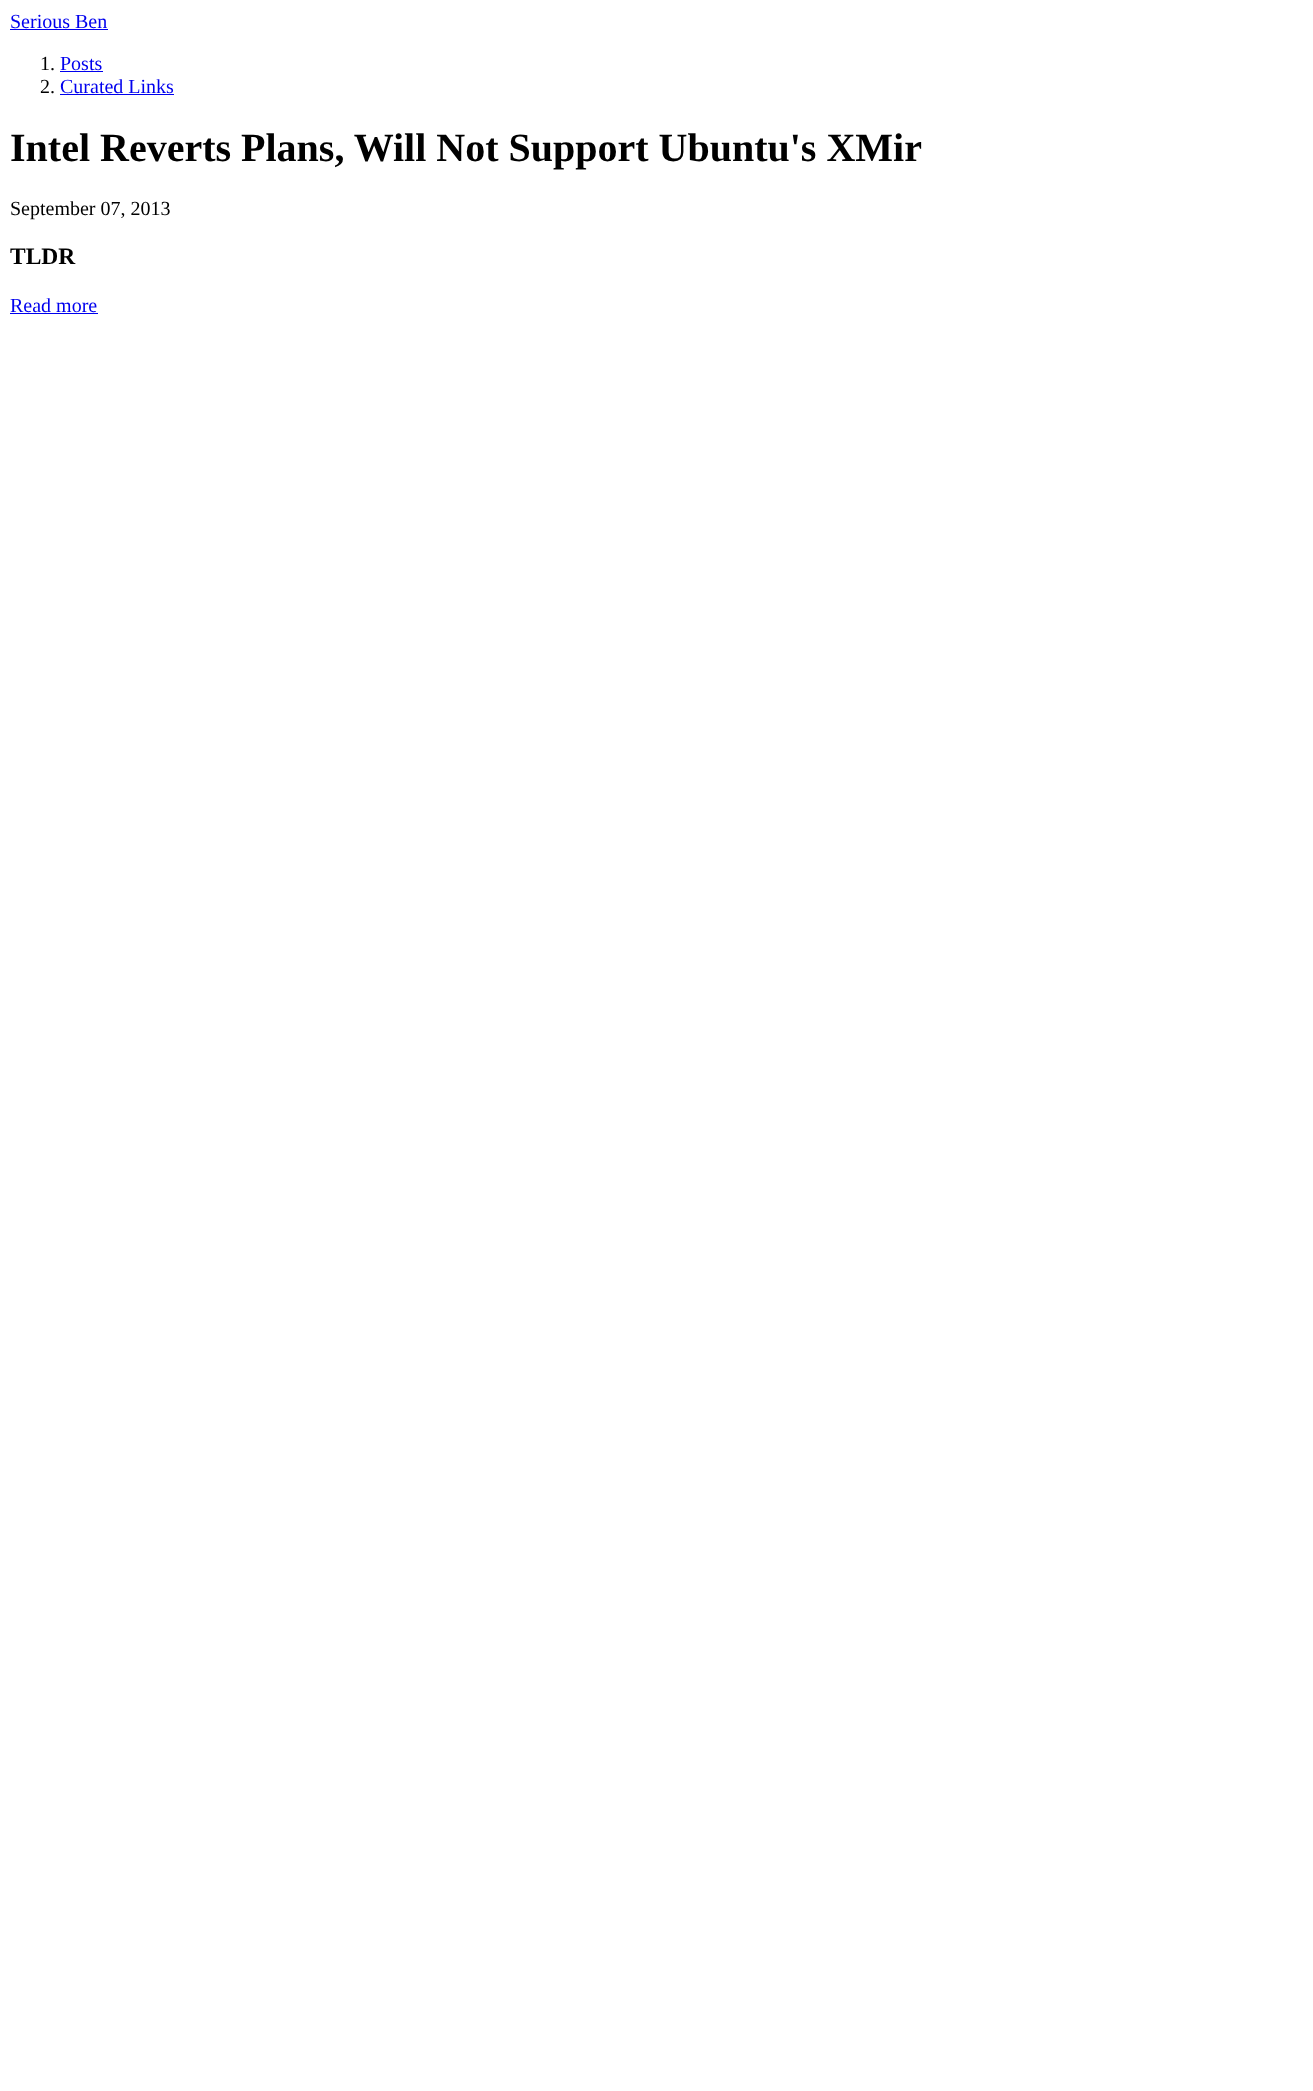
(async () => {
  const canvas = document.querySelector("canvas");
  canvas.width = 1313;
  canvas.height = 2091;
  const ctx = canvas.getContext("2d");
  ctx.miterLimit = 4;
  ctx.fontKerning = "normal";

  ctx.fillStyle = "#ffffff";
  ctx.fillRect(0, 0, 1313, 2091);
  for (const [x, y, w, h, color] of [
    [10, 29, 98, 1, "#0000ee"],
    [60, 71, 43, 1, "#0000ee"],
    [60, 94, 114, 1, "#0000ee"],
    [10, 313, 88, 1, "#0000ee"],
  ]) {
    ctx.fillStyle = color;
    ctx.fillRect(x, y, w, h);
  }
  ctx.font = "20px Liberation Serif";
  ctx.fillText("Serious Ben", 10, 28);
  ctx.fillStyle = "#000000";
  ctx.fillText("1.", 40, 70);
  ctx.fillStyle = "#0000ee";
  ctx.fillText("Posts", 60, 70);
  ctx.fillStyle = "#000000";
  ctx.fillText("2.", 40, 93);
  ctx.fillStyle = "#0000ee";
  ctx.fillText("Curated Links", 60, 93);
  ctx.font = "bold 40px Liberation Serif";
  ctx.fillStyle = "#000000";
  ctx.fillText("Intel Reverts Plans, Will Not Support Ubuntu's XMir", 10, 161);
  ctx.font = "20px Liberation Serif";
  ctx.fillText("September 07, 2013", 10, 215);
  ctx.font = "bold 23.5px Liberation Serif";
  ctx.fillText("TLDR", 10, 264);
  ctx.font = "20px Liberation Serif";
  ctx.fillStyle = "#0000ee";
  ctx.fillText("Read more", 10, 312);
})();
